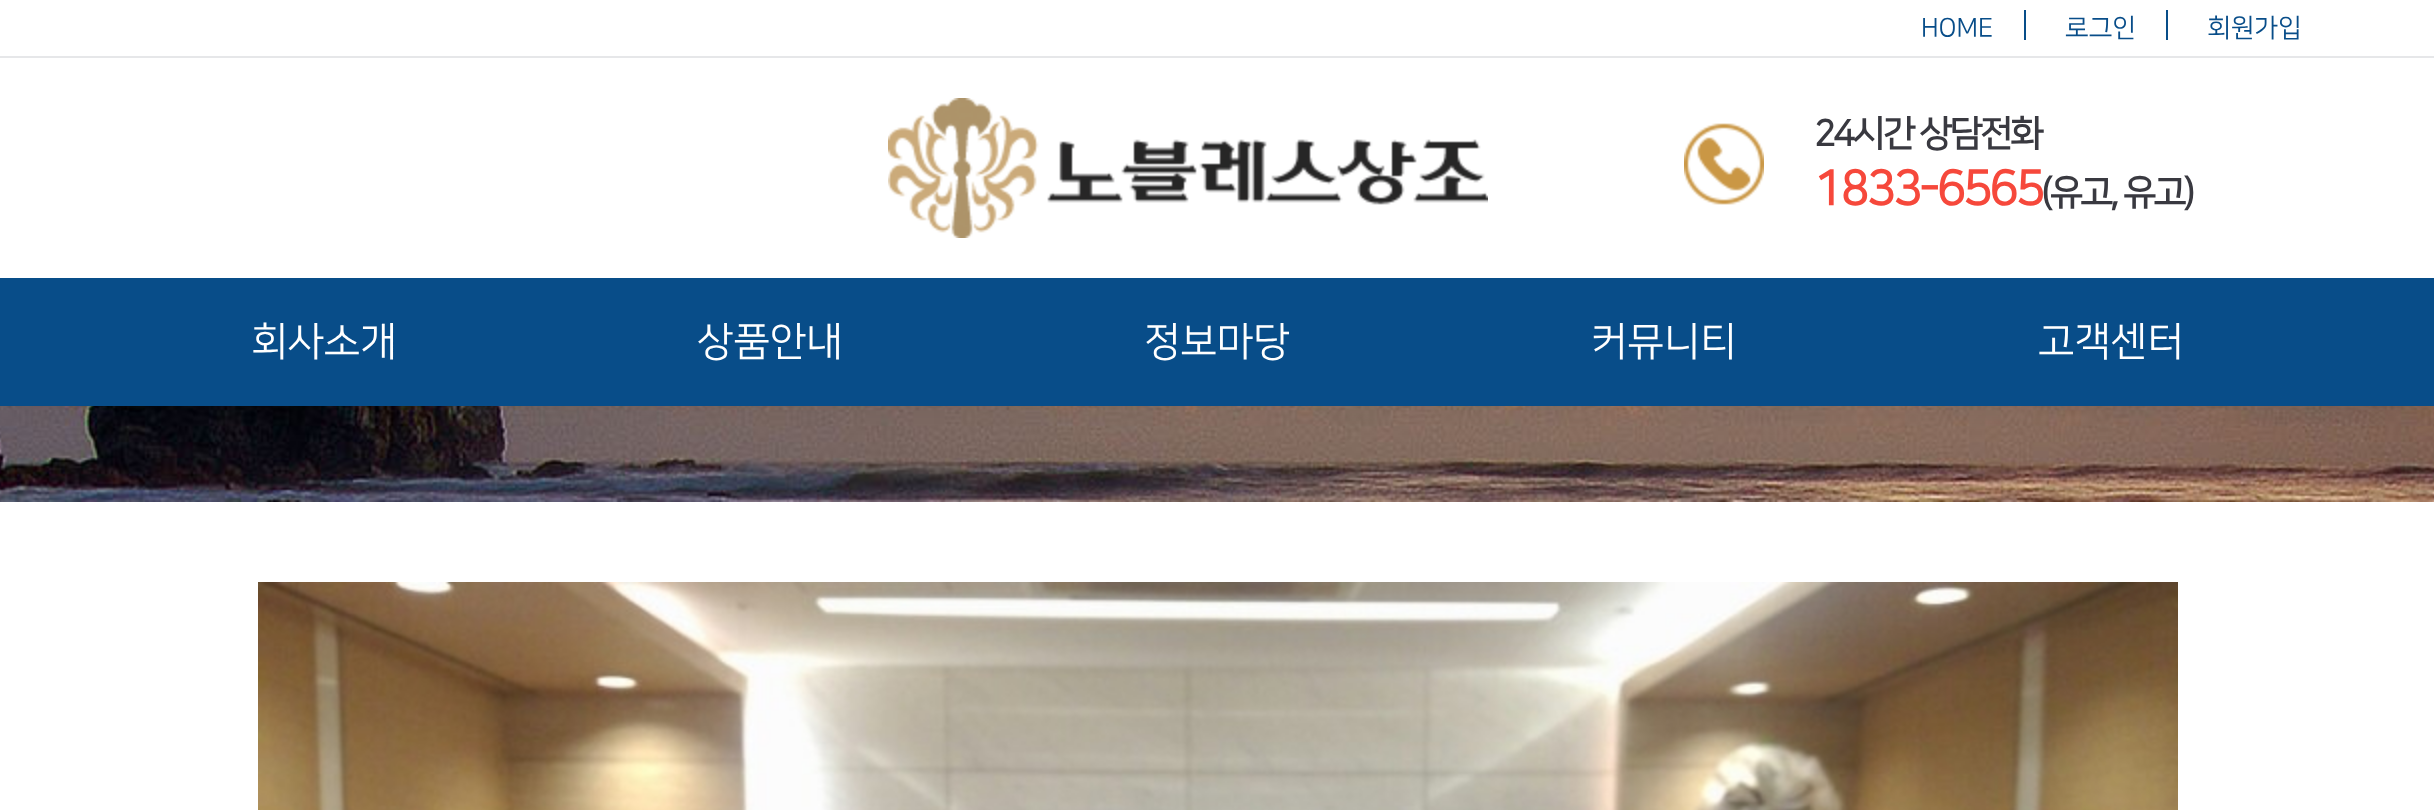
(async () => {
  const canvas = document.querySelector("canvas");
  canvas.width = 2434;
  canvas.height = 810;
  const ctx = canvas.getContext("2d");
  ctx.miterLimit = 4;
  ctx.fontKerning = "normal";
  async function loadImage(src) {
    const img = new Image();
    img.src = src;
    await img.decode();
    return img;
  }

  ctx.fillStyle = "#ffffff";
  ctx.fillRect(0, 0, 2434, 810);
  ctx.drawImage(await loadImage("img/3.png"), 0, 406, 2434, 96);
  ctx.fillStyle = "rgba(0, 0, 0, 0.07)";
  ctx.filter = "blur(15px)";
  ctx.beginPath();
  ctx.rect(-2, -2, 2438, 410);
  ctx.fill();
  ctx.filter = "none";
  for (const [x, y, w, h, color] of [
    [0, 0, 2434, 278, "#ffffff"],
    [2024, 10, 2, 30, "#084d89"],
    [2166, 10, 2, 30, "#084d89"],
    [0, 56, 2434, 2, "#e6e7e9"],
  ]) {
    ctx.fillStyle = color;
    ctx.fillRect(x, y, w, h);
  }
  ctx.drawImage(await loadImage("img/1.png"), 888, 98, 600, 140);
  ctx.drawImage(await loadImage("img/2.png"), 1684, 123, 80, 82);
  ctx.fillStyle = "#084d89";
  ctx.fillRect(0, 278, 2434, 128);
  ctx.drawImage(await loadImage("img/4.png"), 258, 582, 1920, 228);
  ctx.font = "26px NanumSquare";
  for (const [text, x, y] of [
    ["HOME", 1921, 36],
    ["로그인", 2065, 36],
    ["회원가입", 2207, 36],
  ]) {
    ctx.fillText(text, x, y);
  }
  ctx.letterSpacing = "-2.5px";
  ctx.font = "bold 36px NanumSquare";
  ctx.fillStyle = "#393940";
  ctx.fillText("24시간 상담전화", 1814, 145);
  ctx.font = "bold 48px NanumSquare";
  ctx.fillStyle = "#f6483b";
  ctx.fillText("1833-6565", 1814, 204);
  ctx.font = "bold 36px NanumSquare";
  ctx.fillStyle = "#393940";
  ctx.fillText("(유고, 유고)", 2041, 204);
  ctx.letterSpacing = "0px";
  ctx.font = "40px NanumSquare";
  ctx.fillStyle = "#ffffff";
  for (const [text, x, y] of [
    ["회사소개", 251, 354],
    ["상품안내", 697, 354],
    ["정보마당", 1144, 354],
    ["커뮤니티", 1591, 354],
    ["고객센터", 2038, 354],
  ]) {
    ctx.fillText(text, x, y);
  }
})();
